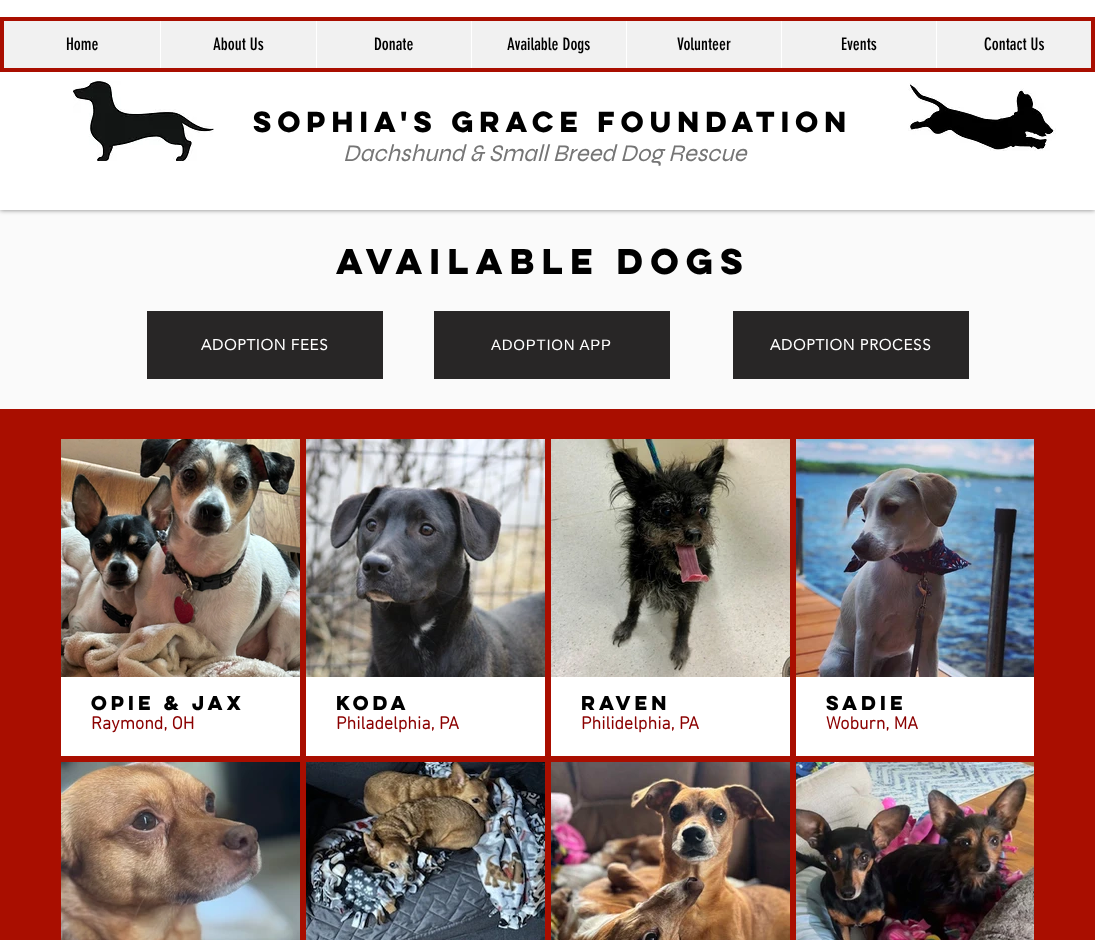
(async () => {
  const canvas = document.querySelector("canvas");
  canvas.width = 1095;
  canvas.height = 940;
  const ctx = canvas.getContext("2d");
  ctx.miterLimit = 4;
  ctx.fontKerning = "normal";
  async function loadImage(src) {
    const img = new Image();
    img.src = src;
    await img.decode();
    return img;
  }

  ctx.fillStyle = "#a90e00";
  ctx.fillRect(0, 0, 1095, 940);
  ctx.fillStyle = "#fafafa";
  ctx.fillRect(0, 210, 1095, 199);
  ctx.fillStyle = "rgba(0, 0, 0, 0.5)";
  ctx.filter = "blur(2.5px)";
  ctx.beginPath();
  ctx.rect(0, 0, 1095, 210);
  ctx.fill();
  ctx.filter = "none";
  ctx.fillStyle = "#ffffff";
  ctx.fillRect(0, 0, 1095, 210);
  ctx.fillStyle = "#f1f1f1";
  ctx.beginPath();
  ctx.rect(2, 19, 1091, 51);
  ctx.fill();
  ctx.strokeStyle = "#a90e00";
  ctx.lineWidth = 4;
  ctx.stroke();
  for (const [x, y, w, h, color] of [
    [160, 21, 1, 47, "#ffffff"],
    [316, 21, 1, 47, "#ffffff"],
    [471, 21, 1, 47, "#ffffff"],
    [626, 21, 1, 47, "#ffffff"],
    [781, 21, 1, 47, "#ffffff"],
    [936, 21, 1, 47, "#ffffff"],
  ]) {
    ctx.fillStyle = color;
    ctx.fillRect(x, y, w, h);
  }
  ctx.drawImage(await loadImage("img/1.png"), 73, 81, 141, 80);
  ctx.drawImage(await loadImage("img/2.png"), 908, 83, 148, 68);
  for (const [x, y, w, h, color] of [
    [147, 311, 236, 68, "#282626"],
    [434, 311, 236, 68, "#282626"],
    [733, 311, 236, 68, "#282626"],
  ]) {
    ctx.fillStyle = color;
    ctx.fillRect(x, y, w, h);
  }
  ctx.drawImage(await loadImage("img/3.png"), 61, 439, 239, 238);
  ctx.fillStyle = "#ffffff";
  ctx.fillRect(61, 677, 239, 79);
  ctx.drawImage(await loadImage("img/4.png"), 306, 439, 239, 238);
  ctx.fillRect(306, 677, 239, 79);
  ctx.drawImage(await loadImage("img/5.png"), 551, 439, 239, 238);
  ctx.fillRect(551, 677, 239, 79);
  ctx.drawImage(await loadImage("img/6.png"), 796, 439, 238, 238);
  ctx.fillRect(796, 677, 238, 79);
  ctx.drawImage(await loadImage("img/7.png"), 61, 762, 239, 178);
  ctx.drawImage(await loadImage("img/8.png"), 306, 762, 239, 178);
  ctx.drawImage(await loadImage("img/9.png"), 551, 762, 239, 178);
  ctx.drawImage(await loadImage("img/10.png"), 796, 762, 238, 178);
  ctx.font = "17px 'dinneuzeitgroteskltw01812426'";
  ctx.fillStyle = "#000000";
  for (const [text, x, y] of [
    ["Home", 66, 50],
    ["About Us", 213, 50],
    ["Donate", 374, 50],
    ["Available Dogs", 507, 50],
    ["Volunteer", 677, 50],
    ["Events", 841, 50],
    ["Contact Us", 984, 50],
  ]) {
    ctx.fillText(text, x, y);
  }
  ctx.letterSpacing = "0.25px";
  ctx.font = "bold 26px 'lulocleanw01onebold'";
  ctx.fillText("SOPHIA'S GRACE FOUNDATION", 253, 132);
  ctx.letterSpacing = "0px";
  ctx.font = "italic 24px Syne";
  ctx.fillStyle = "#757575";
  ctx.fillText("Dachshund & Small Breed Dog Rescue", 343, 161);
  ctx.letterSpacing = "0.25px";
  ctx.font = "bold 32px 'lulocleanw01onebold'";
  ctx.fillStyle = "#000000";
  ctx.fillText("AVAILABLE DOGS", 336, 274);
  ctx.letterSpacing = "0.75px";
  ctx.font = "bold 15px 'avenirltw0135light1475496'";
  ctx.fillStyle = "#ffffff";
  ctx.fillText("ADOPTION FEES", 201, 350);
  ctx.font = "15px Liberation Sans";
  ctx.fillText("ADOPTION APP", 491, 350);
  ctx.font = "bold 15px 'avenirltw0135light1475496'";
  ctx.fillText("ADOPTION PROCESS", 770, 350);
  ctx.letterSpacing = "0px";
  ctx.font = "bold 18px 'lulocleanw01onebold'";
  ctx.fillStyle = "#000000";
  ctx.fillText("Opie & Jax", 91, 710);
  ctx.font = "bold 18px 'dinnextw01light'";
  ctx.fillStyle = "#8b0000";
  ctx.fillText("Raymond, OH", 91, 729);
  ctx.font = "bold 18px 'lulocleanw01onebold'";
  ctx.fillStyle = "#000000";
  ctx.fillText("Koda", 336, 710);
  ctx.font = "bold 18px 'dinnextw01light'";
  ctx.fillStyle = "#8b0000";
  ctx.fillText("Philadelphia, PA", 336, 729);
  ctx.font = "bold 18px 'lulocleanw01onebold'";
  ctx.fillStyle = "#000000";
  ctx.fillText("Raven", 581, 710);
  ctx.font = "bold 18px 'dinnextw01light'";
  ctx.fillStyle = "#8b0000";
  ctx.fillText("Philidelphia, PA", 581, 729);
  ctx.font = "bold 18px 'lulocleanw01onebold'";
  ctx.fillStyle = "#000000";
  ctx.fillText("Sadie", 826, 710);
  ctx.font = "bold 18px 'dinnextw01light'";
  ctx.fillStyle = "#8b0000";
  ctx.fillText("Woburn, MA", 826, 729);
})();
